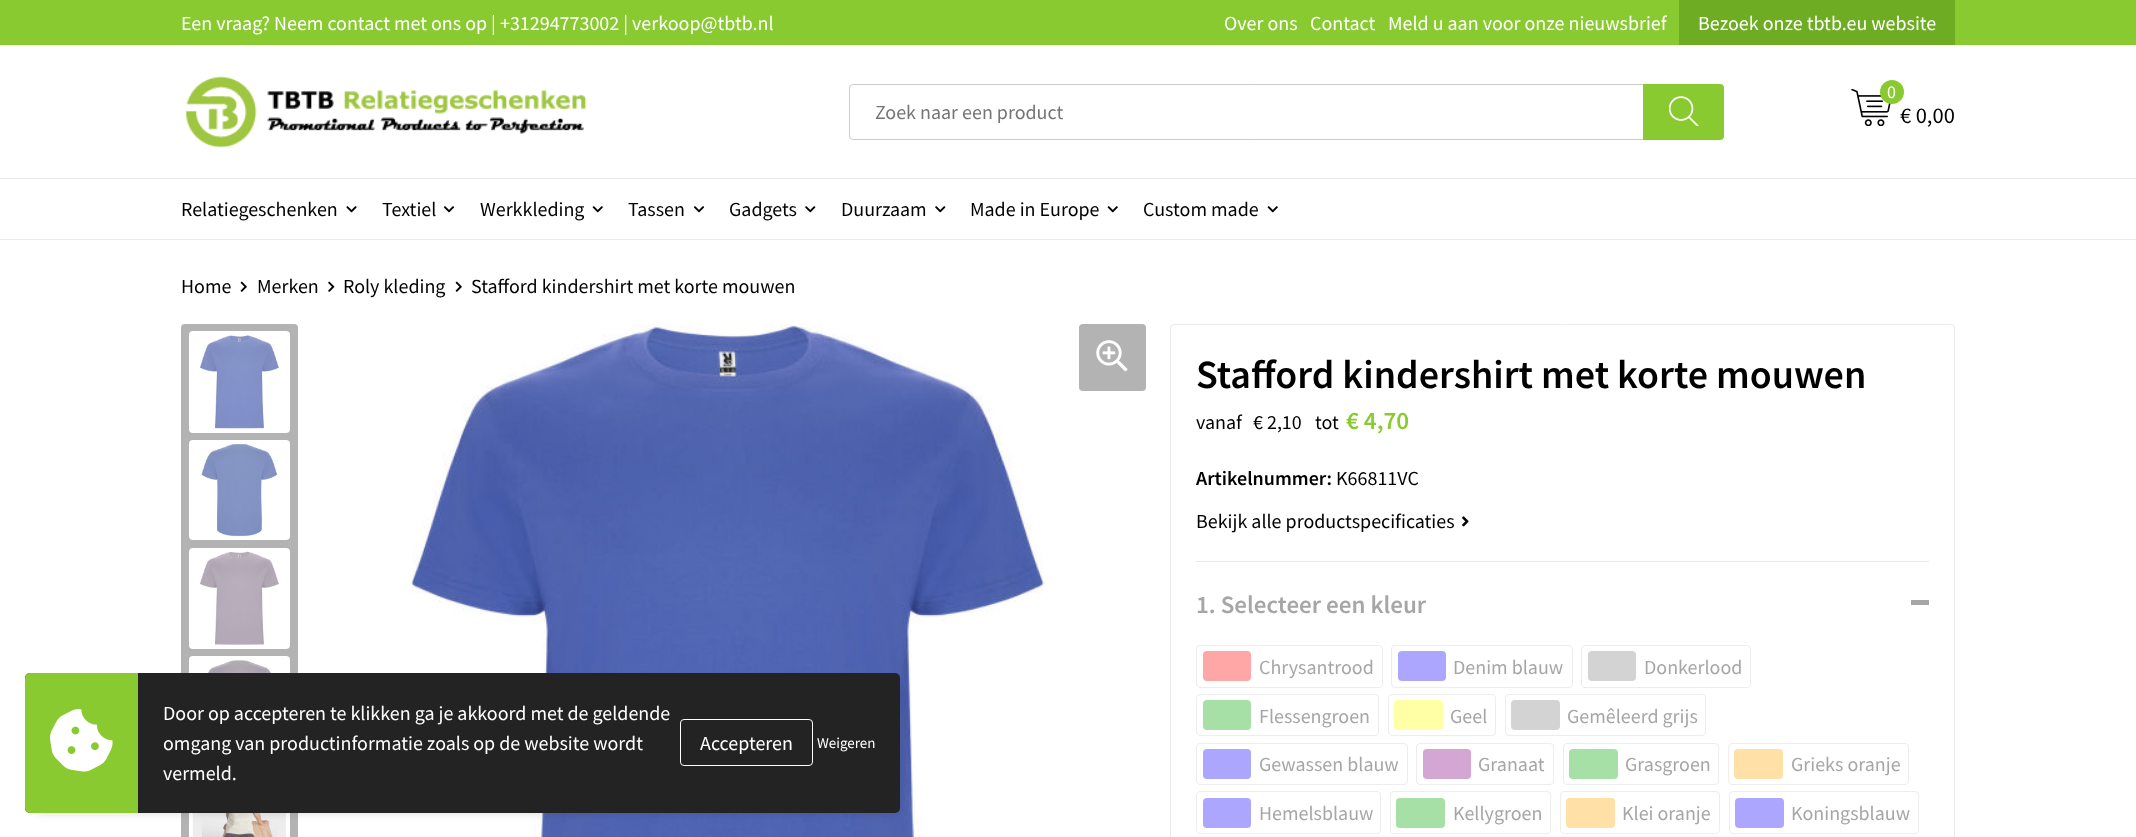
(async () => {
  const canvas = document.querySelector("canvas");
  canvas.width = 2136;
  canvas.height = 837;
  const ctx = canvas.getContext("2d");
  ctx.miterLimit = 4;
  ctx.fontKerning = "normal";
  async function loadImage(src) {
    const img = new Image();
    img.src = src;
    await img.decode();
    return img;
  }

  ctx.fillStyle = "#ffffff";
  ctx.fillRect(0, 0, 2136, 837);
  ctx.fillStyle = "#8aca31";
  ctx.fillRect(0, 0, 2136, 45);
  ctx.fillStyle = "#6ead23";
  ctx.fillRect(1679, 0, 276, 45);
  ctx.drawImage(await loadImage("img/1.png"), 185, 76, 402, 72);
  ctx.beginPath();
  ctx.roundRect(849.5, 84.5, 794, 55, [3.5, 0, 0, 3.5]);
  ctx.strokeStyle = "#cccccc";
  ctx.stroke();
  ctx.fillStyle = "#8aca31";
  ctx.beginPath();
  ctx.roundRect(1643, 84, 81, 56, [0, 4, 4, 0]);
  ctx.fill();
  ctx.drawImage(await loadImage("img/2.png"), 1669, 96, 30, 30);
  ctx.drawImage(await loadImage("img/3.png"), 1851, 89, 40, 37);
  ctx.beginPath();
  ctx.arc(1892, 92, 12, 0, Math.PI * 2);
  ctx.fill();
  ctx.fillStyle = "#eaeaea";
  ctx.fillRect(0, 178, 2136, 1);
  ctx.fillRect(0, 239, 2136, 1);
  ctx.drawImage(await loadImage("img/4.png"), 346, 206, 11, 7);
  ctx.drawImage(await loadImage("img/5.png"), 443, 206, 12, 7);
  ctx.drawImage(await loadImage("img/6.png"), 592, 206, 11, 7);
  ctx.drawImage(await loadImage("img/5.png"), 693, 206, 12, 7);
  ctx.drawImage(await loadImage("img/7.png"), 805, 206, 11, 7);
  ctx.drawImage(await loadImage("img/7.png"), 935, 206, 11, 7);
  ctx.drawImage(await loadImage("img/6.png"), 1107, 206, 11, 7);
  ctx.drawImage(await loadImage("img/6.png"), 1267, 206, 11, 7);
  ctx.drawImage(await loadImage("img/8.png"), 240, 281, 7, 11);
  ctx.drawImage(await loadImage("img/9.png"), 328, 281, 7, 11);
  ctx.drawImage(await loadImage("img/8.png"), 455, 281, 7, 11);
  ctx.fillStyle = "#b3b3b3";
  ctx.beginPath();
  ctx.roundRect(181, 324, 117, 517, 4);
  ctx.fill();
  ctx.fillStyle = "#ffffff";
  ctx.beginPath();
  ctx.roundRect(189, 331, 101, 102, 4);
  ctx.fill();
  ctx.drawImage(await loadImage("img/10.png"), 200, 335, 79, 94);
  ctx.beginPath();
  ctx.roundRect(189, 440, 101, 100, 4);
  ctx.fill();
  ctx.drawImage(await loadImage("img/11.png"), 201, 443, 77, 94);
  ctx.beginPath();
  ctx.roundRect(189, 548, 101, 101, 4);
  ctx.fill();
  ctx.drawImage(await loadImage("img/12.png"), 199, 551, 80, 94);
  ctx.beginPath();
  ctx.roundRect(189, 656, 101, 102, 4);
  ctx.fill();
  ctx.drawImage(await loadImage("img/13.png"), 201, 660, 77, 13);
  ctx.fillRect(189, 813, 101, 24);
  ctx.drawImage(await loadImage("img/14.png"), 192, 813, 94, 24);
  ctx.drawImage(await loadImage("img/15.png"), 410, 323, 635, 514);
  ctx.fillStyle = "#b3b3b3";
  ctx.beginPath();
  ctx.roundRect(1079, 324, 67, 67, 4);
  ctx.fill();
  ctx.drawImage(await loadImage("img/16.png"), 1096, 340, 32, 32);
  ctx.beginPath();
  ctx.roundRect(1170.5, 324.5, 784, 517, 3.5);
  ctx.strokeStyle = "#eaeaea";
  ctx.stroke();
  ctx.fillStyle = "#eaeaea";
  ctx.fillRect(1196, 561, 733, 1);
  ctx.drawImage(await loadImage("img/17.png"), 1462, 516, 7, 11);
  ctx.fillStyle = "#a6a6a6";
  ctx.fillRect(1911, 600, 18, 5);
  ctx.beginPath();
  ctx.roundRect(1196.5, 645.5, 186, 42, 3.5);
  ctx.strokeStyle = "#ededed";
  ctx.stroke();
  ctx.fillStyle = "#ffa6a6";
  ctx.beginPath();
  ctx.roundRect(1203, 651, 48, 30, 4);
  ctx.fill();
  ctx.beginPath();
  ctx.roundRect(1391.5, 645.5, 181, 42, 3.5);
  ctx.stroke();
  ctx.fillStyle = "#ada6ff";
  ctx.beginPath();
  ctx.roundRect(1398, 651, 48, 30, 4);
  ctx.fill();
  ctx.beginPath();
  ctx.roundRect(1581.5, 645.5, 169, 42, 3.5);
  ctx.stroke();
  ctx.fillStyle = "#d3d3d3";
  ctx.beginPath();
  ctx.roundRect(1588, 651, 48, 30, 4);
  ctx.fill();
  ctx.beginPath();
  ctx.roundRect(1196.5, 694.5, 182, 41, 3.5);
  ctx.stroke();
  ctx.fillStyle = "#a6e0a6";
  ctx.beginPath();
  ctx.roundRect(1203, 700, 48, 30, 4);
  ctx.fill();
  ctx.beginPath();
  ctx.roundRect(1388.5, 694.5, 107, 41, 3.5);
  ctx.stroke();
  ctx.fillStyle = "#ffffa6";
  ctx.beginPath();
  ctx.roundRect(1394, 700, 49, 30, 4);
  ctx.fill();
  ctx.beginPath();
  ctx.roundRect(1505.5, 694.5, 200, 41, 3.5);
  ctx.stroke();
  ctx.fillStyle = "#d3d3d3";
  ctx.beginPath();
  ctx.roundRect(1511, 700, 49, 30, 4);
  ctx.fill();
  ctx.beginPath();
  ctx.roundRect(1196.5, 743.5, 211, 41, 3.5);
  ctx.stroke();
  ctx.fillStyle = "#ada6ff";
  ctx.beginPath();
  ctx.roundRect(1203, 749, 48, 30, 4);
  ctx.fill();
  ctx.beginPath();
  ctx.roundRect(1416.5, 743.5, 137, 41, 3.5);
  ctx.stroke();
  ctx.fillStyle = "#d3a6d3";
  ctx.beginPath();
  ctx.roundRect(1423, 749, 48, 30, 4);
  ctx.fill();
  ctx.beginPath();
  ctx.roundRect(1563.5, 743.5, 155, 41, 3.5);
  ctx.stroke();
  ctx.fillStyle = "#a6e0a6";
  ctx.beginPath();
  ctx.roundRect(1569, 749, 49, 30, 4);
  ctx.fill();
  ctx.beginPath();
  ctx.roundRect(1728.5, 743.5, 180, 41, 3.5);
  ctx.stroke();
  ctx.fillStyle = "#ffe0a6";
  ctx.beginPath();
  ctx.roundRect(1734, 749, 49, 30, 4);
  ctx.fill();
  ctx.beginPath();
  ctx.roundRect(1196.5, 791.5, 184, 42, 3.5);
  ctx.stroke();
  ctx.fillStyle = "#ada6ff";
  ctx.beginPath();
  ctx.roundRect(1203, 798, 48, 30, 4);
  ctx.fill();
  ctx.beginPath();
  ctx.roundRect(1390.5, 791.5, 160, 42, 3.5);
  ctx.stroke();
  ctx.fillStyle = "#a6e0a6";
  ctx.beginPath();
  ctx.roundRect(1396, 798, 49, 30, 4);
  ctx.fill();
  ctx.beginPath();
  ctx.roundRect(1560.5, 791.5, 159, 42, 3.5);
  ctx.stroke();
  ctx.fillStyle = "#ffe0a6";
  ctx.beginPath();
  ctx.roundRect(1566, 798, 49, 30, 4);
  ctx.fill();
  ctx.beginPath();
  ctx.roundRect(1729.5, 791.5, 189, 42, 3.5);
  ctx.stroke();
  ctx.fillStyle = "#ada6ff";
  ctx.beginPath();
  ctx.roundRect(1735, 798, 49, 30, 4);
  ctx.fill();
  ctx.fillStyle = "rgba(0, 0, 0, 0.15)";
  ctx.filter = "blur(4.5px)";
  ctx.beginPath();
  ctx.rect(38, 685, 862, 128);
  ctx.fill();
  ctx.filter = "none";
  ctx.fillStyle = "#232323";
  ctx.beginPath();
  ctx.roundRect(25, 673, 875, 140, 5);
  ctx.fill();
  ctx.fillStyle = "#8aca31";
  ctx.beginPath();
  ctx.roundRect(25, 673, 113, 140, [5, 0, 0, 5]);
  ctx.fill();
  ctx.drawImage(await loadImage("img/18.png"), 50, 709, 63, 63);
  ctx.beginPath();
  ctx.roundRect(680.5, 719.5, 132, 46, 3.5);
  ctx.strokeStyle = "#ffffff";
  ctx.stroke();
  ctx.font = "20px Source Sans Pro";
  ctx.fillStyle = "#ffffff";
  for (const [text, x, y] of [
    ["Een vraag? Neem contact met ons op | +31294773002 | verkoop@tbtb.nl", 181, 30],
    ["Over ons", 1224, 30],
    ["Contact", 1310, 30],
    ["Meld u aan voor onze nieuwsbrief", 1388, 30],
    ["Bezoek onze tbtb.eu website", 1698, 30],
  ]) {
    ctx.fillText(text, x, y);
  }
  ctx.fillStyle = "#757575";
  ctx.fillText("Zoek naar een product", 875, 119);
  ctx.font = "18px Source Sans Pro";
  ctx.fillStyle = "#ffffff";
  ctx.fillText("0", 1887, 98);
  ctx.font = "22.5px Source Sans Pro";
  ctx.fillStyle = "#000000";
  ctx.fillText("€ 0,00", 1900, 123);
  ctx.font = "20px Source Sans Pro";
  for (const [text, x, y] of [
    ["Relatiegeschenken", 181, 216],
    ["Textiel", 382, 216],
    ["Werkkleding", 480, 216],
    ["Tassen", 628, 216],
    ["Gadgets", 729, 216],
    ["Duurzaam", 841, 216],
    ["Made in Europe", 970, 216],
    ["Custom made", 1143, 216],
    ["Home", 181, 293],
    ["Merken", 257, 293],
    ["Roly kleding", 343, 293],
    ["Stafford kindershirt met korte mouwen", 471, 293],
  ]) {
    ctx.fillText(text, x, y);
  }
  ctx.font = "600 40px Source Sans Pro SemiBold";
  ctx.fillText("Stafford kindershirt met korte mouwen", 1196, 388);
  ctx.font = "20px Source Sans Pro";
  for (const [text, x, y] of [
    ["vanaf", 1196, 429],
    ["€ 2,10", 1253, 429],
    ["tot", 1315, 429],
  ]) {
    ctx.fillText(text, x, y);
  }
  ctx.font = "600 25px Source Sans Pro SemiBold";
  ctx.fillStyle = "#8aca31";
  ctx.fillText("€ 4,70", 1346, 429);
  ctx.font = "600 20px Source Sans Pro SemiBold";
  ctx.fillStyle = "#000000";
  ctx.fillText("Artikelnummer:", 1196, 485);
  ctx.font = "20px Source Sans Pro";
  ctx.fillText("K66811VC", 1336, 485);
  ctx.fillText("Bekijk alle productspecificaties", 1196, 528);
  ctx.font = "600 25px Source Sans Pro SemiBold";
  ctx.fillStyle = "#a6a6a6";
  ctx.fillText("1. Selecteer een kleur", 1196, 613);
  ctx.font = "20px Source Sans Pro";
  for (const [text, x, y] of [
    ["Chrysantrood", 1259, 674],
    ["Denim blauw", 1453, 674],
    ["Donkerlood", 1644, 674],
    ["Flessengroen", 1259, 723],
    ["Geel", 1450, 723],
    ["Gemêleerd grijs", 1567, 723],
    ["Gewassen blauw", 1259, 771],
    ["Granaat", 1478, 771],
    ["Grasgroen", 1625, 771],
    ["Grieks oranje", 1791, 771],
    ["Hemelsblauw", 1259, 820],
    ["Kellygroen", 1453, 820],
    ["Klei oranje", 1622, 820],
    ["Koningsblauw", 1791, 820],
  ]) {
    ctx.fillText(text, x, y);
  }
  ctx.fillStyle = "#ffffff";
  for (const [text, x, y] of [
    ["Door op accepteren te klikken ga je akkoord met de geldende", 163, 720],
    ["omgang van productinformatie zoals op de website wordt", 163, 750],
    ["Accepteren", 700, 750],
  ]) {
    ctx.fillText(text, x, y);
  }
  ctx.font = "15px Source Sans Pro";
  ctx.fillText("Weigeren", 817, 748);
  ctx.font = "20px Source Sans Pro";
  ctx.fillText("vermeld.", 163, 780);
})();
